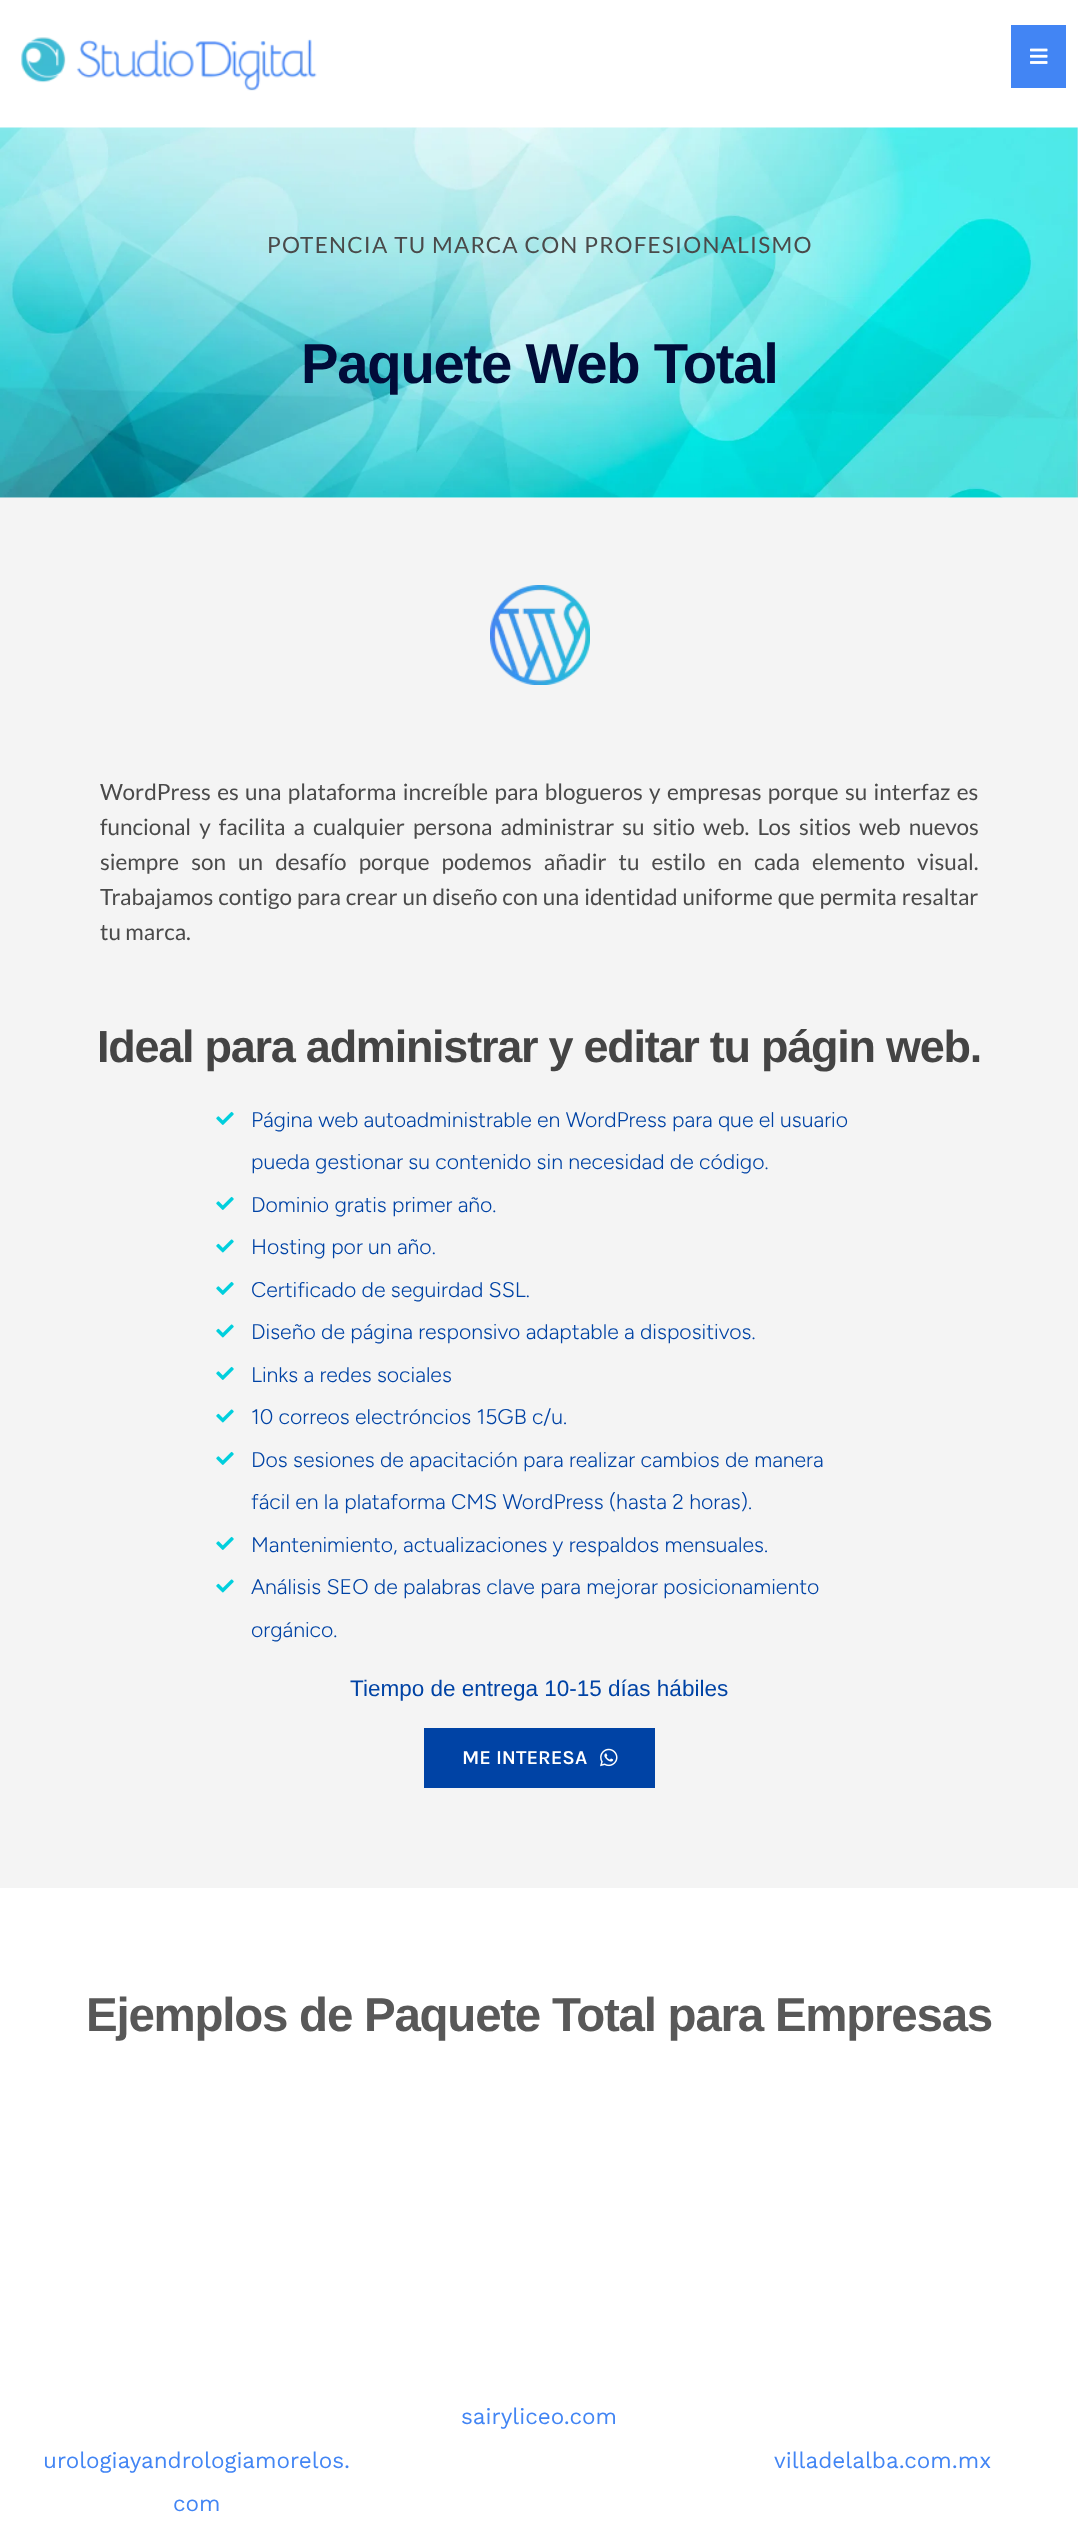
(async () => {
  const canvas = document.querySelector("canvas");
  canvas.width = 1078;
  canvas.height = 2525;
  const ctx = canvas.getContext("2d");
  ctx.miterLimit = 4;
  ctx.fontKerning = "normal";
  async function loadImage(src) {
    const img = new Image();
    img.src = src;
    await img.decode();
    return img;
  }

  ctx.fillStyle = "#ffffff";
  ctx.fillRect(0, 0, 1078, 2525);
  ctx.drawImage(await loadImage("img/1.png"), 21, 37, 296, 54);
  ctx.fillStyle = "#4285f4";
  ctx.fillRect(1011, 25, 55, 63);
  ctx.drawImage(await loadImage("img/2.png"), 1030, 48, 18, 16);
  ctx.drawImage(await loadImage("img/3.png"), 0, 127, 1078, 371);
  ctx.fillStyle = "#f4f4f4";
  ctx.fillRect(0, 498, 1078, 1390);
  ctx.drawImage(await loadImage("img/4.png"), 490, 585, 100, 100);
  ctx.drawImage(await loadImage("img/5.png"), 216, 1111, 18, 14);
  ctx.drawImage(await loadImage("img/5.png"), 216, 1196, 18, 14);
  ctx.drawImage(await loadImage("img/6.png"), 216, 1239, 18, 14);
  ctx.drawImage(await loadImage("img/5.png"), 216, 1281, 18, 14);
  ctx.drawImage(await loadImage("img/6.png"), 216, 1324, 18, 14);
  ctx.drawImage(await loadImage("img/5.png"), 216, 1366, 18, 14);
  ctx.drawImage(await loadImage("img/6.png"), 216, 1409, 18, 14);
  ctx.drawImage(await loadImage("img/5.png"), 216, 1451, 18, 14);
  ctx.drawImage(await loadImage("img/5.png"), 216, 1536, 18, 14);
  ctx.drawImage(await loadImage("img/6.png"), 216, 1579, 18, 14);
  ctx.fillStyle = "#0043a5";
  ctx.fillRect(424, 1728, 231, 60);
  ctx.drawImage(await loadImage("img/7.png"), 600, 1748, 18, 19);
  ctx.letterSpacing = "1.25px";
  ctx.font = "22.5px Lato";
  ctx.fillStyle = "#4a4a4a";
  ctx.fillText("POTENCIA TU MARCA CON PROFESIONALISMO", 267, 253);
  ctx.letterSpacing = "-1.25px";
  ctx.font = "bold 56.25px Liberation Sans";
  ctx.fillStyle = "#010c39";
  ctx.fillText("Paquete Web Total", 301, 383);
  ctx.letterSpacing = "0px";
  ctx.wordSpacing = "2px";
  ctx.font = "22.5px Lato";
  ctx.fillStyle = "#4a4a4a";
  ctx.fillText("WordPress es una plataforma increíble para blogueros y empresas porque su interfaz es", 100, 800);
  ctx.wordSpacing = "3.75px";
  ctx.fillText("funcional y facilita a cualquier persona administrar su sitio web. Los sitios web nuevos", 100, 835);
  ctx.wordSpacing = "7.75px";
  ctx.fillText("siempre son un desafío porque podemos añadir tu estilo en cada elemento visual.", 100, 870);
  ctx.wordSpacing = "0.6px";
  ctx.fillText("Trabajamos contigo para crear un diseño con una identidad uniforme que permita resaltar", 100, 905);
  ctx.wordSpacing = "0px";
  ctx.fillText("tu marca.", 100, 940);
  ctx.letterSpacing = "-1.25px";
  ctx.font = "bold 45px Liberation Sans";
  ctx.fillStyle = "#444444";
  ctx.fillText("Ideal para administrar y editar tu págin web.", 97, 1062);
  ctx.letterSpacing = "0px";
  ctx.font = "300 21.25px Figtree";
  ctx.fillStyle = "#0043a5";
  for (const [text, x, y] of [
    ["Página web autoadministrable en WordPress para que el usuario", 251, 1127],
    ["pueda gestionar su contenido sin necesidad de código.", 251, 1169],
    ["Dominio gratis primer año.", 251, 1212],
    ["Hosting por un año.", 251, 1254],
    ["Certificado de seguirdad SSL.", 251, 1297],
    ["Diseño de página responsivo adaptable a dispositivos.", 251, 1339],
    ["Links a redes sociales", 251, 1382],
    ["10 correos electróncios 15GB c/u.", 251, 1424],
    ["Dos sesiones de apacitación para realizar cambios de manera", 251, 1467],
    ["fácil en la plataforma CMS WordPress (hasta 2 horas).", 251, 1509],
    ["Mantenimiento, actualizaciones y respaldos mensuales.", 251, 1552],
    ["Análisis SEO de palabras clave para mejorar posicionamiento", 251, 1594],
    ["orgánico.", 251, 1637],
  ]) {
    ctx.fillText(text, x, y);
  }
  ctx.font = "22.5px Liberation Sans";
  ctx.fillText("Tiempo de entrega 10-15 días hábiles", 350, 1696);
  ctx.font = "600 20px Karla";
  ctx.fillStyle = "#ffffff";
  ctx.fillText("ME INTERESA", 462, 1764);
  ctx.letterSpacing = "-1.25px";
  ctx.font = "bold 47.5px Liberation Sans";
  ctx.fillStyle = "#585858";
  ctx.fillText("Ejemplos de Paquete Total para Empresas", 86, 2031);
  ctx.letterSpacing = "0px";
  ctx.font = "22.5px Work Sans";
  ctx.fillStyle = "#4285f4";
  for (const [text, x, y] of [
    ["sairyliceo.com", 461, 2424],
    ["urologiayandrologiamorelos.", 43, 2468],
    ["com", 173, 2511],
    ["villadelalba.com.mx", 774, 2468],
  ]) {
    ctx.fillText(text, x, y);
  }
})();
